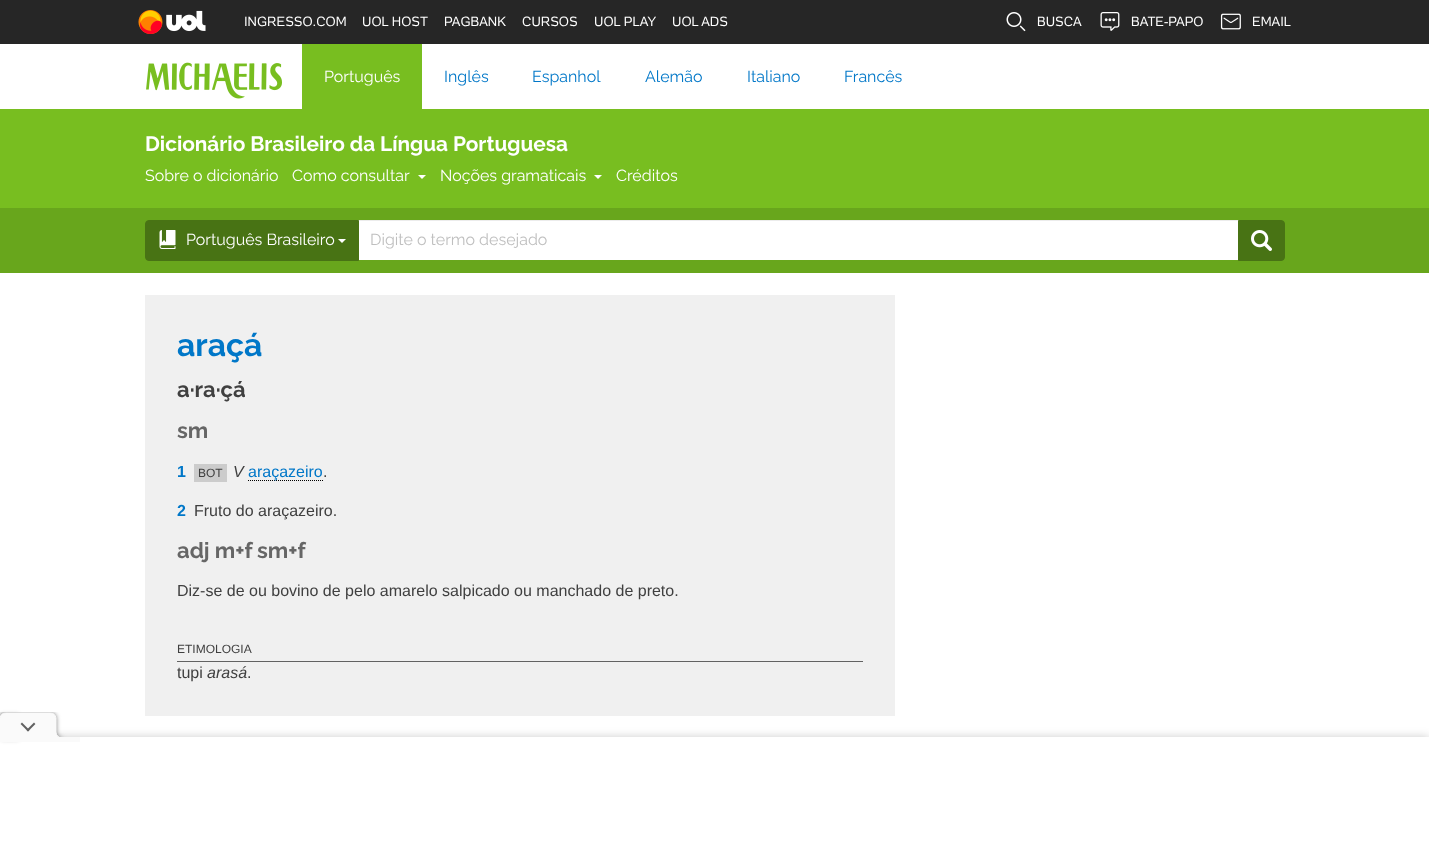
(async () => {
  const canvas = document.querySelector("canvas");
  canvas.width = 1429;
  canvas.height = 847;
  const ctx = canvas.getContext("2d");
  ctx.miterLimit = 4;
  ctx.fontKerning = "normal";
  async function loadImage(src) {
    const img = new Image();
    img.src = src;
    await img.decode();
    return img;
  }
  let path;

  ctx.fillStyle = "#ffffff";
  ctx.fillRect(0, 0, 1429, 847);
  ctx.fillStyle = "#262626";
  ctx.fillRect(0, 0, 1429, 44);
  ctx.drawImage(await loadImage("img/1.png"), 138, 10, 68, 24);
  ctx.drawImage(await loadImage("img/2.png"), 1006, 12, 20, 20);
  ctx.drawImage(await loadImage("img/3.png"), 1100, 12, 20, 19);
  ctx.drawImage(await loadImage("img/4.png"), 1220, 13, 21, 17);
  ctx.drawImage(await loadImage("img/5.png"), 146, 62, 136, 37);
  ctx.fillStyle = "#78be20";
  ctx.fillRect(302, 44, 120, 65);
  ctx.fillRect(0, 109, 1429, 99);
  ctx.fillStyle = "#ffffff";
  path = new Path2D("M418 175H426L422 179Z");
  ctx.fill(path);
  path = new Path2D("M594 175H602L598 179Z");
  ctx.fill(path);
  ctx.fillStyle = "#68a61c";
  ctx.fillRect(0, 208, 1429, 65);
  ctx.fillStyle = "#ececec";
  ctx.fillRect(358, 220, 881, 1);
  ctx.fillStyle = "#487314";
  ctx.beginPath();
  ctx.roundRect(145.5, 220.5, 213, 40, [3.5, 0, 0, 3.5]);
  ctx.fill();
  ctx.strokeStyle = "#487314";
  ctx.stroke();
  ctx.drawImage(await loadImage("img/6.png"), 159, 230, 17, 19);
  ctx.fillStyle = "#ffffff";
  path = new Path2D("M338 239H346L342 243Z");
  ctx.fill(path);
  ctx.fillRect(359, 221, 879, 39);
  ctx.fillStyle = "#487314";
  ctx.beginPath();
  ctx.roundRect(1238.5, 220.5, 46, 40, [0, 3.5, 3.5, 0]);
  ctx.fill();
  ctx.stroke();
  ctx.drawImage(await loadImage("img/7.png"), 1251, 230, 21, 21);
  ctx.fillStyle = "#f0f0f0";
  ctx.fillRect(145, 295, 750, 421);
  ctx.fillStyle = "#cccccc";
  ctx.fillRect(194, 464, 33, 18);
  path = new Path2D("M248 480.5H323");
  ctx.strokeStyle = "#000000";
  ctx.setLineDash([1, 1]);
  ctx.stroke(path);
  ctx.fillStyle = "#626262";
  ctx.fillRect(177, 661, 686, 1);
  ctx.fillStyle = "rgba(0, 0, 0, 0.2)";
  ctx.filter = "blur(5px)";
  ctx.beginPath();
  ctx.rect(0, 737, 1429, 110);
  ctx.fill();
  ctx.filter = "none";
  ctx.fillStyle = "#ffffff";
  ctx.fillRect(0, 737, 1429, 110);
  ctx.fillStyle = "rgba(0, 0, 0, 0.27)";
  ctx.filter = "blur(2px)";
  ctx.beginPath();
  ctx.roundRect(0, 714, 20, 26, 4);
  ctx.fill();
  ctx.filter = "none";
  ctx.drawImage(await loadImage("img/8.png"), 0, 712, 80, 30);
  ctx.font = "13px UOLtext";
  ctx.fillStyle = "#ffffff";
  for (const [text, x, y] of [
    ["INGRESSO.COM", 244, 26],
    ["UOL HOST", 362, 26],
    ["PAGBANK", 444, 26],
    ["CURSOS", 522, 26],
    ["UOL PLAY", 594, 26],
    ["UOL ADS", 672, 26],
    ["BUSCA", 1037, 26],
    ["BATE-PAPO", 1131, 26],
    ["EMAIL", 1252, 26],
  ]) {
    ctx.fillText(text, x, y);
  }
  ctx.font = "16px Raleway";
  ctx.fillText("Português", 324, 82);
  ctx.fillStyle = "#0077c8";
  for (const [text, x, y] of [
    ["Inglês", 444, 82],
    ["Espanhol", 532, 82],
    ["Alemão", 645, 82],
    ["Italiano", 747, 82],
    ["Francês", 844, 82],
  ]) {
    ctx.fillText(text, x, y);
  }
  ctx.font = "bold 20.8px Raleway";
  ctx.fillStyle = "#ffffff";
  ctx.fillText("Dicionário Brasileiro da Língua Portuguesa", 145, 151);
  ctx.font = "16px Raleway";
  for (const [text, x, y] of [
    ["Sobre o dicionário", 145, 181],
    ["Como consultar", 292, 181],
    ["Noções gramaticais", 440, 181],
    ["Créditos", 616, 181],
    ["Português Brasileiro", 186, 245],
  ]) {
    ctx.fillText(text, x, y);
  }
  ctx.fillStyle = "#bfbfbf";
  ctx.fillText("Digite o termo desejado", 370, 245);
  ctx.font = "bold 32px Raleway";
  ctx.fillStyle = "#0077c8";
  ctx.fillText("araçá", 177, 356);
  ctx.font = "bold 22px Raleway";
  ctx.fillStyle = "#404040";
  ctx.fillText("a·ra·çá", 177, 397);
  ctx.fillStyle = "#666666";
  ctx.fillText("sm", 177, 438);
  ctx.font = "bold 16px Liberation Sans";
  ctx.fillStyle = "#0077c8";
  ctx.fillText("1", 177, 477);
  ctx.font = "12px Liberation Sans";
  ctx.fillStyle = "#404040";
  ctx.fillText("BOT", 198, 477);
  ctx.font = "italic 16px Liberation Sans";
  ctx.fillText("V", 233, 477);
  ctx.font = "16px Liberation Sans";
  ctx.fillStyle = "#0077c8";
  ctx.fillText("araçazeiro", 248, 477);
  ctx.fillStyle = "#404040";
  ctx.fillText(".", 323, 477);
  ctx.font = "bold 16px Liberation Sans";
  ctx.fillStyle = "#0077c8";
  ctx.fillText("2", 177, 516);
  ctx.font = "16px Liberation Sans";
  ctx.fillStyle = "#404040";
  ctx.fillText("Fruto do araçazeiro.", 194, 516);
  ctx.font = "bold 22px Raleway";
  ctx.fillStyle = "#666666";
  ctx.fillText("adj m+f", 177, 558);
  ctx.fillText("sm+f", 257, 558);
  ctx.font = "16px Liberation Sans";
  ctx.fillStyle = "#404040";
  ctx.fillText("Diz-se de ou bovino de pelo amarelo salpicado ou manchado de preto.", 177, 596);
  ctx.font = "12px Liberation Sans";
  ctx.fillText("ETIMOLOGIA", 177, 653);
  ctx.font = "16px Liberation Sans";
  ctx.fillText("tupi", 177, 678);
  ctx.font = "italic 16px Liberation Sans";
  ctx.fillText("arasá", 207, 678);
  ctx.font = "16px Liberation Sans";
  ctx.fillText(".", 247, 678);
})();
